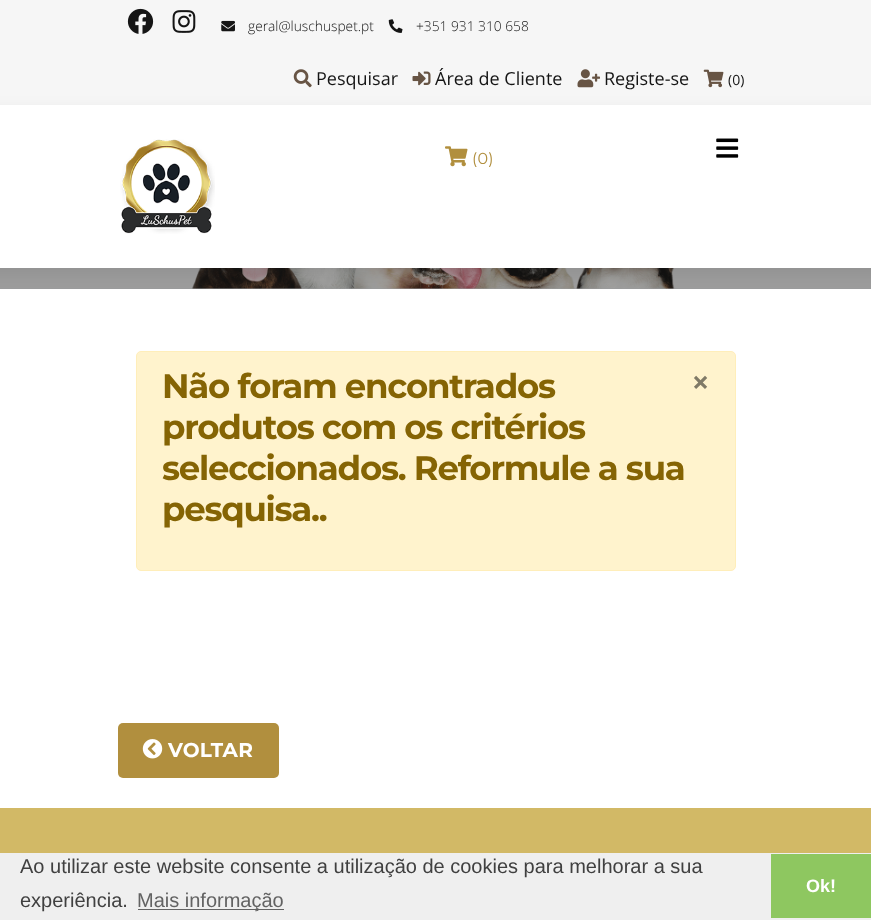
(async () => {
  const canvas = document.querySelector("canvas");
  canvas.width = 871;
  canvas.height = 920;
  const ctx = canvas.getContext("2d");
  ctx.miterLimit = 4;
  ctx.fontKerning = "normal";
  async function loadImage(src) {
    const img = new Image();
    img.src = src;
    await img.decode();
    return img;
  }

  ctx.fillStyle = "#ffffff";
  ctx.fillRect(0, 0, 871, 920);
  ctx.fillStyle = "#f6f6f6";
  ctx.fillRect(0, 0, 871, 105);
  ctx.drawImage(await loadImage("img/1.png"), 127, 8, 27, 26);
  ctx.drawImage(await loadImage("img/2.png"), 172, 10, 24, 23);
  ctx.drawImage(await loadImage("img/3.png"), 221, 20, 14, 12);
  ctx.drawImage(await loadImage("img/4.png"), 388, 19, 15, 14);
  ctx.drawImage(await loadImage("img/5.png"), 293, 69, 19, 19);
  ctx.drawImage(await loadImage("img/6.png"), 412, 71, 19, 15);
  ctx.drawImage(await loadImage("img/7.png"), 577, 69, 23, 19);
  ctx.drawImage(await loadImage("img/8.png"), 703, 69, 21, 19);
  ctx.fillStyle = "#989a9c";
  ctx.fillRect(0, 288, 871, 1);
  ctx.drawImage(await loadImage("img/12.png"), 0, 268, 871, 21);
  ctx.fillStyle = "rgba(0, 0, 0, 0.07)";
  ctx.filter = "blur(7.5px)";
  ctx.beginPath();
  ctx.rect(-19, 110, 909, 163);
  ctx.fill();
  ctx.filter = "none";
  ctx.fillStyle = "#ffffff";
  ctx.fillRect(0, 105, 871, 163);
  ctx.drawImage(await loadImage("img/9.png"), 120, 139, 95, 95);
  ctx.drawImage(await loadImage("img/10.png"), 445, 146, 23, 21);
  ctx.drawImage(await loadImage("img/11.png"), 716, 138, 23, 20);
  ctx.fillStyle = "#fff3cd";
  ctx.beginPath();
  ctx.roundRect(136.5, 351.5, 599, 219, 4.5);
  ctx.fill();
  ctx.strokeStyle = "#ffeeba";
  ctx.stroke();
  ctx.fillStyle = "#b18f3e";
  ctx.beginPath();
  ctx.roundRect(118, 723, 161, 55, 5);
  ctx.fill();
  ctx.drawImage(await loadImage("img/13.png"), 142, 739, 21, 20);
  for (const [x, y, w, h, color] of [
    [0, 808, 871, 45, "#d2b966"],
    [0, 853, 871, 67, "#efefef"],
    [138, 909, 146, 1, "#636363"],
    [771, 854, 100, 64, "#8ec760"],
  ]) {
    ctx.fillStyle = color;
    ctx.fillRect(x, y, w, h);
  }
  ctx.font = "300 13.75px Open Sans";
  ctx.fillStyle = "#151515";
  ctx.fillText("geral@luschuspet.pt", 248, 31);
  ctx.fillText("+351 931 310 658", 416, 31);
  ctx.font = "18px Open Sans";
  for (const [text, x, y] of [
    ["Pesquisar", 316, 85],
    ["Área de Cliente", 435, 85],
    ["Registe-se", 604, 85],
  ]) {
    ctx.fillText(text, x, y);
  }
  ctx.font = "14px Open Sans";
  ctx.fillText("(0)", 728, 85);
  ctx.letterSpacing = "0.25px";
  ctx.font = "16px Montserrat";
  ctx.fillStyle = "#b18f3e";
  ctx.fillText("(0)", 472, 164);
  ctx.letterSpacing = "-1.25px";
  ctx.font = "bold 34px Montserrat";
  ctx.fillStyle = "#856404";
  for (const [text, x, y] of [
    ["Não foram encontrados", 162, 398],
    ["produtos com os critérios", 162, 439],
    ["seleccionados. Reformule a sua", 162, 480],
    ["pesquisa..", 162, 521],
  ]) {
    ctx.fillText(text, x, y);
  }
  ctx.letterSpacing = "0px";
  ctx.font = "bold 30px Open Sans";
  ctx.fillStyle = "#807a67";
  ctx.fillText("×", 692, 393);
  ctx.letterSpacing = "0.25px";
  ctx.font = "bold 20px Montserrat";
  ctx.fillStyle = "#ffffff";
  ctx.fillText("VOLTAR", 168, 757);
  ctx.letterSpacing = "0px";
  ctx.font = "20px Liberation Sans";
  ctx.fillStyle = "#404040";
  ctx.fillText("Ao utilizar este website consente a utilização de cookies para melhorar a sua", 20, 873);
  ctx.fillText("experiência.", 20, 907);
  ctx.fillStyle = "#636363";
  ctx.fillText("Mais informação", 137, 907);
  ctx.font = "bold 18px Liberation Sans";
  ctx.fillStyle = "#ffffff";
  ctx.fillText("Ok!", 806, 892);
})();
